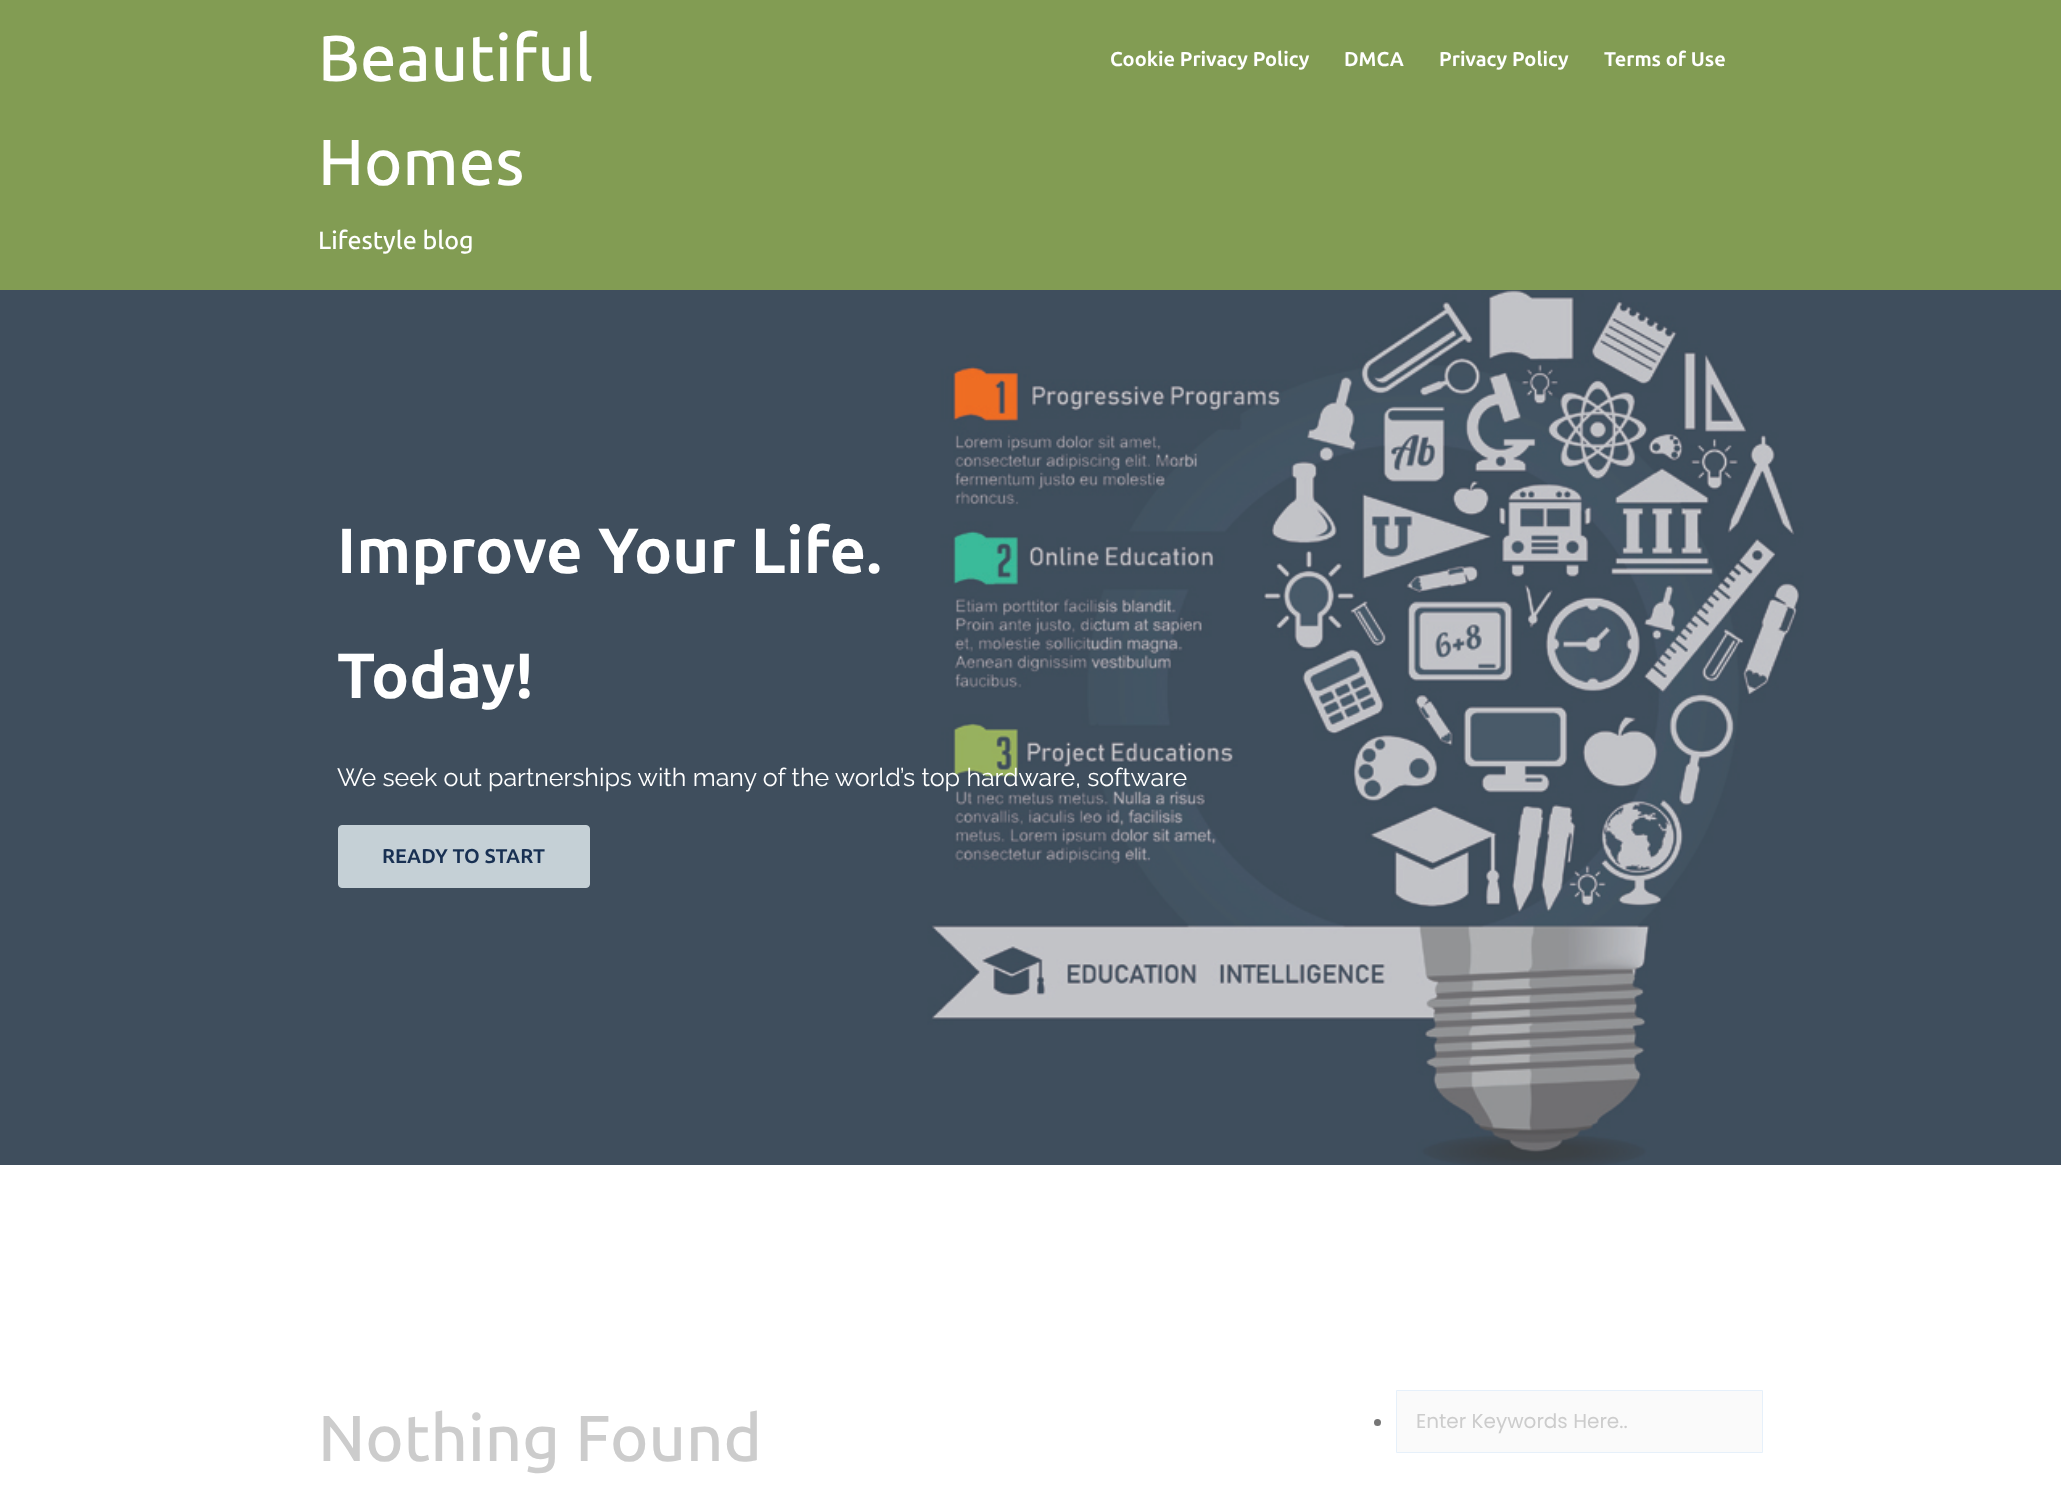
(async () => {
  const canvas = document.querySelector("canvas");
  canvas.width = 2061;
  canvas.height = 1510;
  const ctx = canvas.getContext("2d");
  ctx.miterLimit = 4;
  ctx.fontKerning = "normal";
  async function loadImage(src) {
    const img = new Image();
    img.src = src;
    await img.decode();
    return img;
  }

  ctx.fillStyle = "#ffffff";
  ctx.fillRect(0, 0, 2061, 1510);
  ctx.fillStyle = "#829c53";
  ctx.fillRect(0, 0, 2061, 290);
  ctx.drawImage(await loadImage("img/1.png"), 0, 290, 2061, 875);
  ctx.fillStyle = "#c5d0d6";
  ctx.beginPath();
  ctx.roundRect(338.5, 825.5, 251, 62, 3.5);
  ctx.fill();
  ctx.strokeStyle = "#c5d0d6";
  ctx.stroke();
  ctx.fillStyle = "#767676";
  ctx.beginPath();
  ctx.arc(1377.5, 1422.5, 3.5, 0, Math.PI * 2);
  ctx.fill();
  ctx.fillStyle = "#fafafa";
  ctx.beginPath();
  ctx.rect(1396.5, 1390.5, 366, 62);
  ctx.fill();
  ctx.strokeStyle = "#e6f0fa";
  ctx.stroke();
  ctx.font = "500 65px Ubuntu";
  ctx.fillStyle = "#ffffff";
  ctx.fillText("Beautiful", 318, 81);
  ctx.fillText("Homes", 318, 185);
  ctx.font = "500 25px Ubuntu";
  ctx.fillText("Lifestyle blog", 318, 249);
  ctx.font = "bold 20px Ubuntu";
  for (const [text, x, y] of [
    ["Cookie Privacy Policy", 1110, 66],
    ["DMCA", 1344, 66],
    ["Privacy Policy", 1439, 66],
    ["Terms of Use", 1604, 66],
  ]) {
    ctx.fillText(text, x, y);
  }
  ctx.font = "bold 63.75px Ubuntu";
  ctx.fillText("Improve Your Life.", 337, 573);
  ctx.fillText("Today!", 337, 698);
  ctx.font = "25px Raleway";
  ctx.fillText("We seek out partnerships with many of the world’s top hardware, software", 337, 786);
  ctx.font = "bold 20px Ubuntu";
  ctx.fillStyle = "#183053";
  ctx.fillText("READY TO START", 382, 863);
  ctx.font = "500 65px Ubuntu";
  ctx.fillStyle = "#cccccc";
  ctx.fillText("Nothing Found", 318, 1461);
  ctx.font = "20px Poppins";
  ctx.fillText("Enter Keywords Here..", 1416, 1428);
})();
